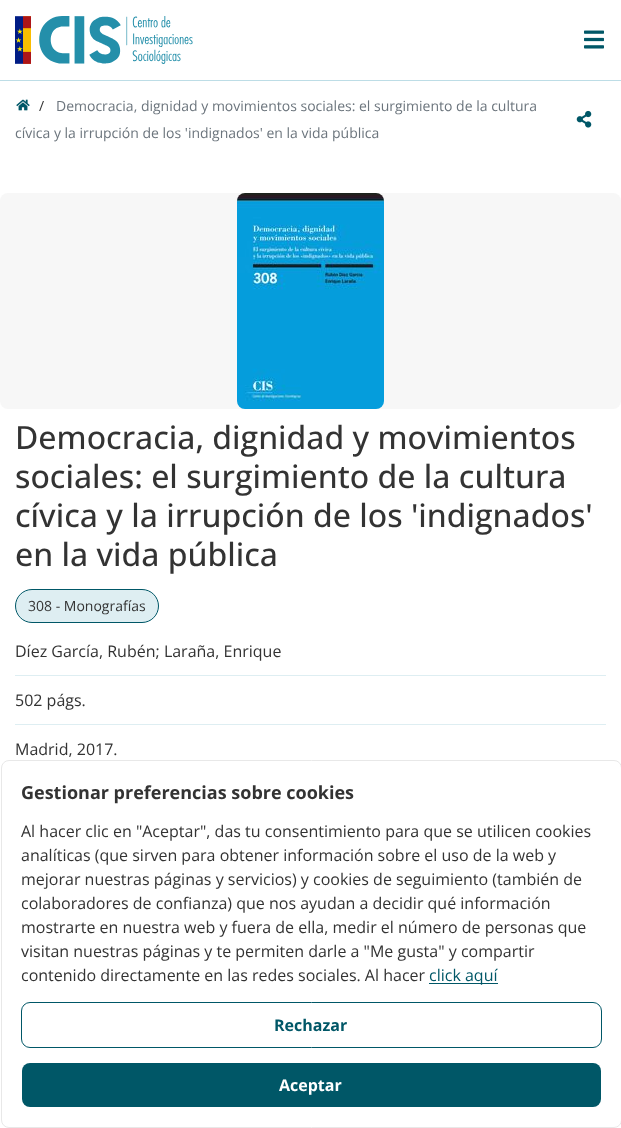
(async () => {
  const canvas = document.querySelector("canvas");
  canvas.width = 621;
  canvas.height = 1128;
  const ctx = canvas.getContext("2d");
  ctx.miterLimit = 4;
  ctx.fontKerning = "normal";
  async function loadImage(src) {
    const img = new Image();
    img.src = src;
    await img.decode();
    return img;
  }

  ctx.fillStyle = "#ffffff";
  ctx.fillRect(0, 0, 621, 1128);
  ctx.fillStyle = "#bddde6";
  ctx.fillRect(0, 80, 621, 1);
  ctx.drawImage(await loadImage("img/1.png"), 15, 16, 178, 48);
  ctx.drawImage(await loadImage("img/2.png"), 584, 30, 20, 19);
  ctx.drawImage(await loadImage("img/3.png"), 16, 99, 14, 12);
  ctx.drawImage(await loadImage("img/4.png"), 576, 110, 16, 18);
  ctx.fillStyle = "#f7f7f7";
  ctx.beginPath();
  ctx.roundRect(0, 193, 621, 216, 8);
  ctx.fill();
  ctx.drawImage(await loadImage("img/5.png"), 237, 193, 147, 216);
  ctx.fillStyle = "#deeef2";
  ctx.beginPath();
  ctx.roundRect(15.5, 589.5, 143, 33, 16.5);
  ctx.fill();
  ctx.strokeStyle = "#005767";
  ctx.stroke();
  ctx.fillRect(15, 675, 591, 1);
  ctx.fillRect(15, 724, 591, 1);
  ctx.beginPath();
  ctx.roundRect(1.5, 760.5, 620, 367, 7.5);
  ctx.strokeStyle = "#e8e8e8";
  ctx.stroke();
  ctx.fillStyle = "#005767";
  ctx.fillRect(429, 983, 69, 1);
  ctx.beginPath();
  ctx.roundRect(21.5, 1002.5, 580, 45, 8.5);
  ctx.strokeStyle = "#005767";
  ctx.stroke();
  ctx.beginPath();
  ctx.roundRect(22, 1063, 579, 44, 8);
  ctx.fill();
  ctx.font = "14px Open Sans";
  ctx.fillStyle = "#333333";
  ctx.fillText("/", 39, 111);
  ctx.fillStyle = "#6c757d";
  ctx.fillText("Democracia, dignidad y movimientos sociales: el surgimiento de la cultura", 56, 111);
  ctx.fillText("cívica y la irrupción de los 'indignados' en la vida pública", 15, 138);
  ctx.font = "500 32px Open Sans";
  ctx.fillStyle = "#333333";
  for (const [text, x, y] of [
    ["Democracia, dignidad y movimientos", 15, 449],
    ["sociales: el surgimiento de la cultura", 15, 488],
    ["cívica y la irrupción de los 'indignados'", 15, 527],
    ["en la vida pública", 15, 566],
  ]) {
    ctx.fillText(text, x, y);
  }
  ctx.font = "14px Open Sans";
  ctx.fillText("308 - Monografías", 28, 611);
  ctx.font = "16px Open Sans";
  for (const [text, x, y] of [
    ["Díez García, Rubén; Laraña, Enrique", 15, 657],
    ["502 págs.", 15, 706],
    ["Madrid, 2017.", 15, 755],
  ]) {
    ctx.fillText(text, x, y);
  }
  ctx.font = "bold 18px Open Sans";
  ctx.fillText("Gestionar preferencias sobre cookies", 21, 799);
  ctx.font = "16px Open Sans";
  for (const [text, x, y] of [
    ["Al hacer clic en \"Aceptar\", das tu consentimiento para que se utilicen cookies", 21, 837],
    ["analíticas (que sirven para obtener información sobre el uso de la web y", 21, 861],
    ["mejorar nuestras páginas y servicios) y cookies de seguimiento (también de", 21, 885],
    ["colaboradores de confianza) que nos ayudan a decidir qué información", 21, 909],
    ["mostrarte en nuestra web y fuera de ella, medir el número de personas que", 21, 933],
    ["visitan nuestras páginas y te permiten darle a \"Me gusta\" y compartir", 21, 957],
    ["contenido directamente en las redes sociales. Al hacer", 21, 981],
  ]) {
    ctx.fillText(text, x, y);
  }
  ctx.fillStyle = "#005767";
  ctx.fillText("click aquí", 429, 981);
  ctx.font = "bold 16px Open Sans";
  ctx.fillText("Rechazar", 274, 1031);
  ctx.fillStyle = "#ffffff";
  ctx.fillText("Aceptar", 279, 1091);
})();
